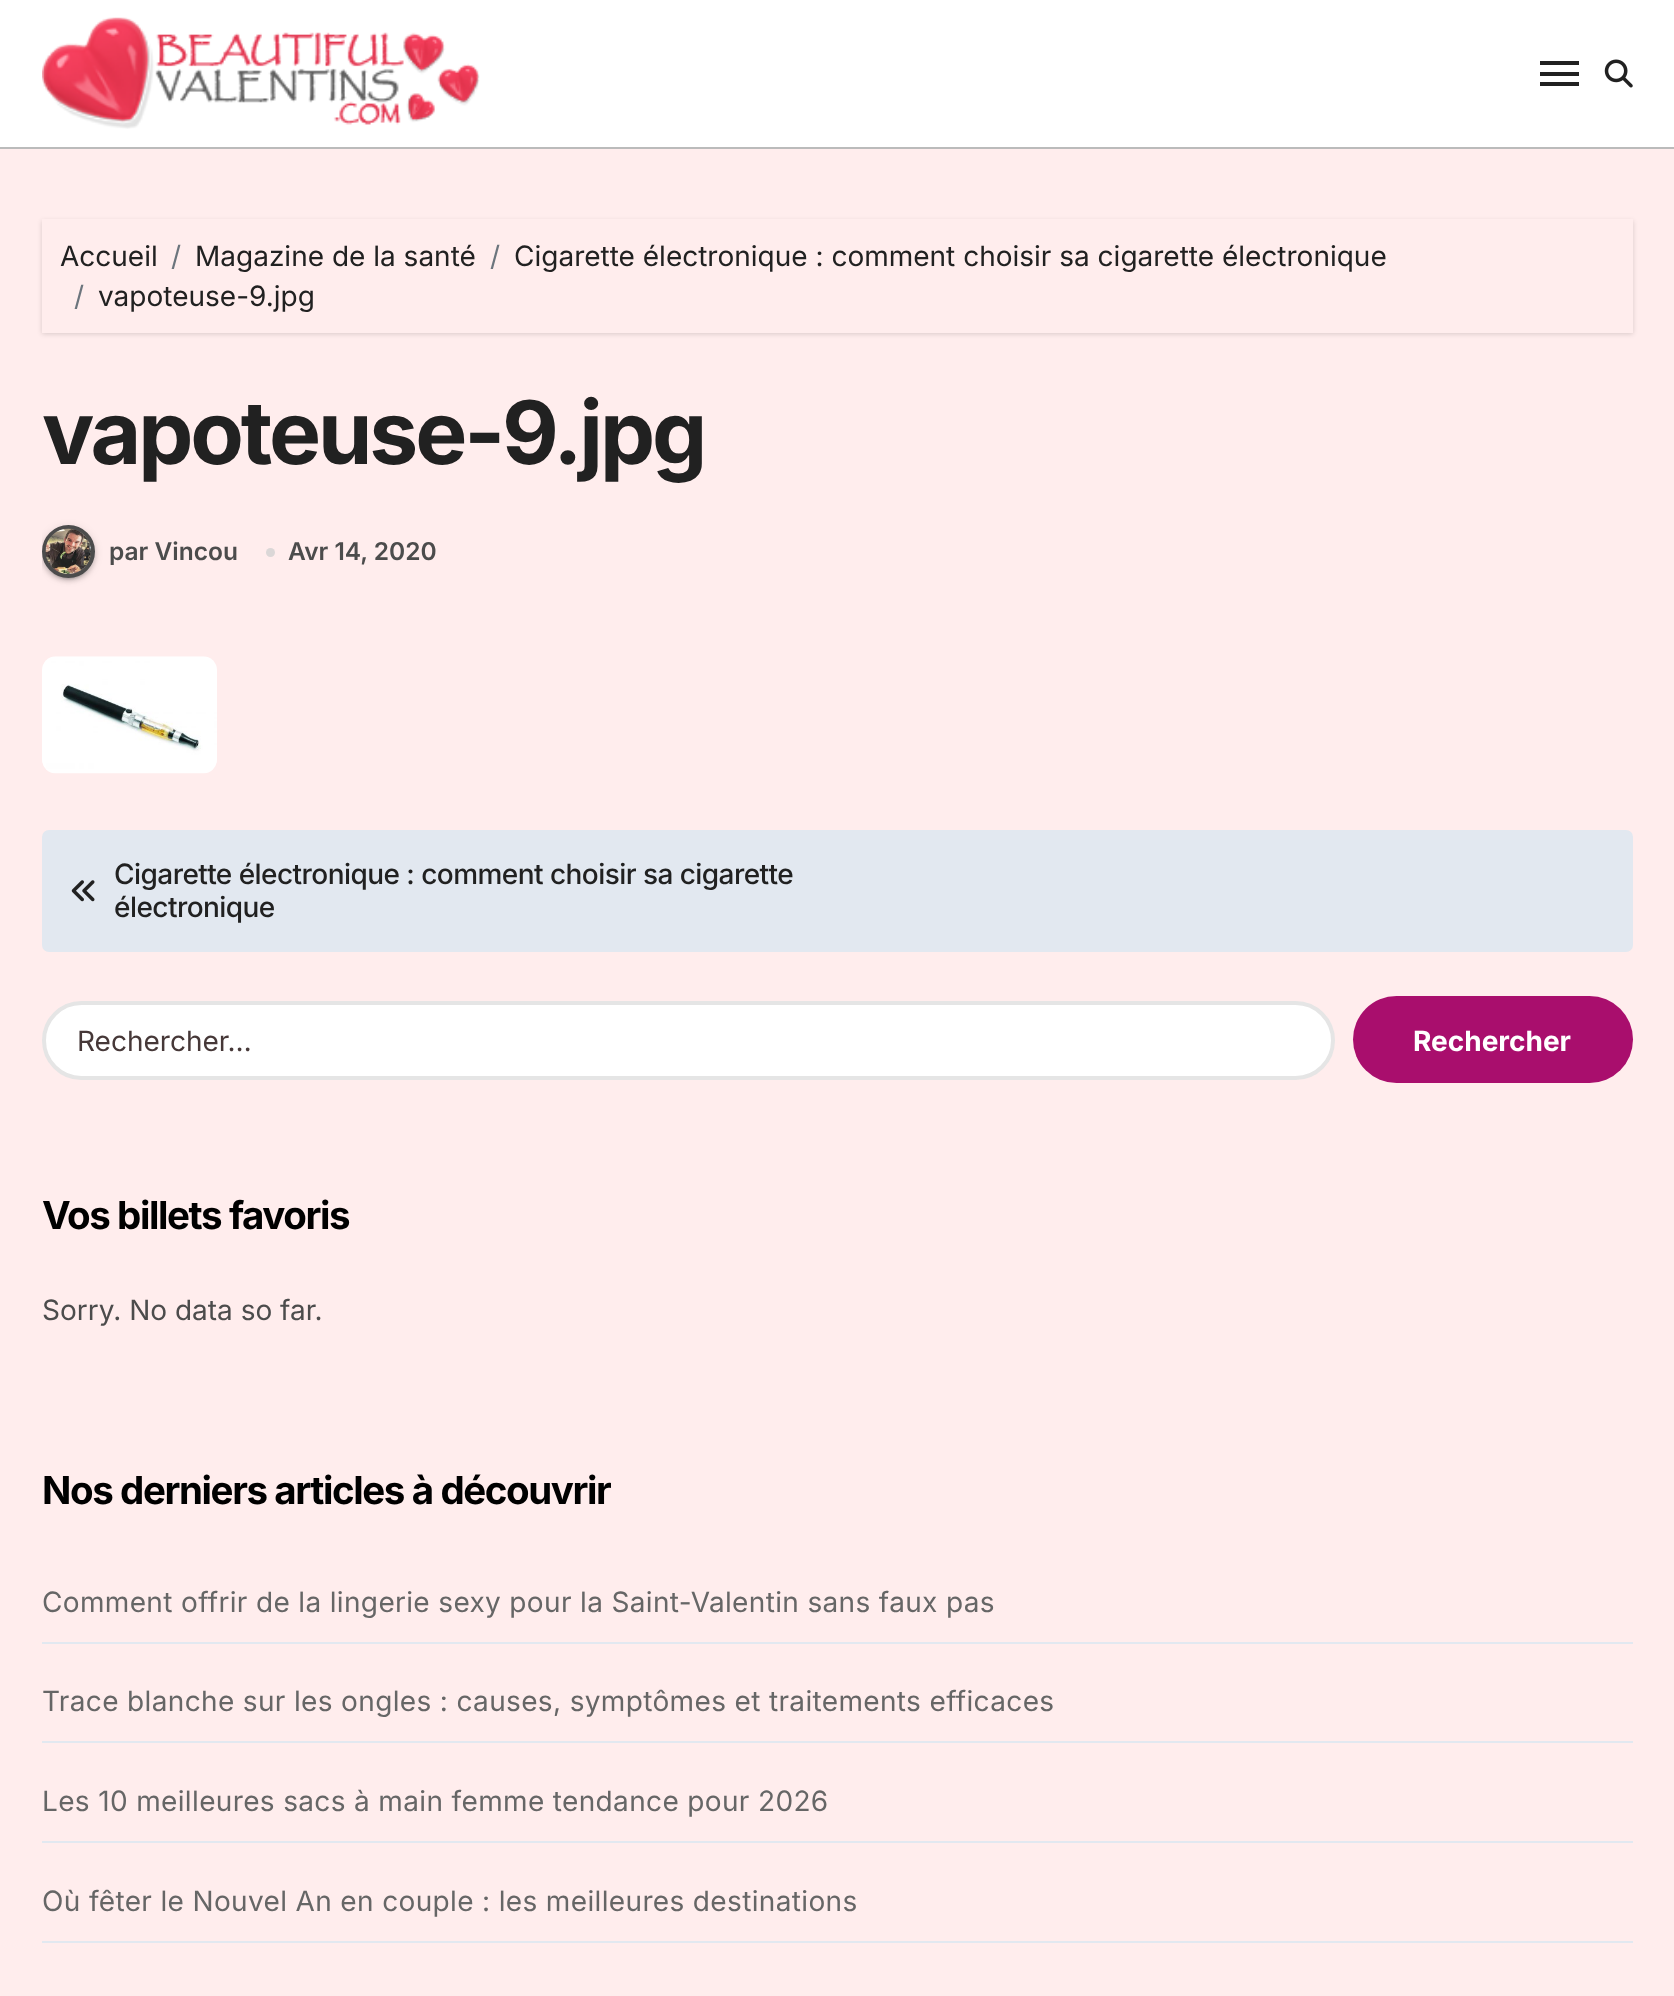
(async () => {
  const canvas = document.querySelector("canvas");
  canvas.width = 1674;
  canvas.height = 1996;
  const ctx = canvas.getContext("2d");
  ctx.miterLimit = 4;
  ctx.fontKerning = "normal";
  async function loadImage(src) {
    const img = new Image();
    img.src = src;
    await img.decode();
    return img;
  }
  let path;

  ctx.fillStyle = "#ffeded";
  ctx.fillRect(0, 0, 1674, 1996);
  ctx.fillStyle = "#ffffff";
  ctx.fillRect(0, 0, 1674, 147);
  ctx.fillStyle = "#bbbbbb";
  ctx.fillRect(0, 147, 1674, 2);
  ctx.drawImage(await loadImage("img/1.png"), 42, 17, 438, 112);
  for (const [x, y, w, h, color] of [
    [1540, 61, 39, 4, "#212121"],
    [1540, 72, 39, 4, "#212121"],
    [1540, 82, 39, 4, "#212121"],
  ]) {
    ctx.fillStyle = color;
    ctx.fillRect(x, y, w, h);
  }
  ctx.drawImage(await loadImage("img/2.png"), 1604, 59, 29, 29);
  ctx.save();
  path = new Path2D("M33 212H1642V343H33ZM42 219H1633V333H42Z");
  ctx.clip(path, "evenodd");
  ctx.fillStyle = "rgba(0, 0, 0, 0.15)";
  ctx.filter = "blur(2.5px)";
  ctx.beginPath();
  ctx.rect(42, 221, 1591, 113);
  ctx.fill();
  ctx.filter = "none";
  ctx.restore();
  ctx.save();
  ctx.beginPath();
  ctx.rect(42, 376, 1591, 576);
  ctx.clip();
  ctx.fillStyle = "rgba(0, 0, 0, 0.12)";
  ctx.filter = "blur(4.5px)";
  ctx.beginPath();
  ctx.roundRect(42, 527, 53, 52, 26);
  ctx.fill();
  ctx.filter = "none";
  ctx.restore();
  ctx.fillStyle = "rgba(0, 0, 0, 0.2)";
  ctx.filter = "blur(1px)";
  ctx.beginPath();
  ctx.roundRect(46, 534, 45, 45, 22.5);
  ctx.fill();
  ctx.filter = "none";
  ctx.save();
  ctx.beginPath();
  ctx.rect(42, 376, 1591, 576);
  ctx.clip();
  ctx.fillStyle = "rgba(0, 0, 0, 0.14)";
  ctx.filter = "blur(2px)";
  ctx.beginPath();
  ctx.roundRect(42, 529, 53, 52, 26);
  ctx.fill();
  ctx.filter = "none";
  ctx.restore();
  ctx.beginPath();
  ctx.arc(68.5, 551.5, 24.5, 0, Math.PI * 2);
  ctx.strokeStyle = "#4c4c4c";
  ctx.lineWidth = 4;
  ctx.stroke();
  ctx.drawImage(await loadImage("img/3.png"), 45, 528, 46, 46);
  ctx.fillStyle = "#dbd7d7";
  ctx.beginPath();
  ctx.arc(270.5, 552.5, 4.5, 0, Math.PI * 2);
  ctx.fill();
  ctx.drawImage(await loadImage("img/4.png"), 42, 656, 175, 118);
  ctx.fillStyle = "#e2e8f0";
  ctx.beginPath();
  ctx.roundRect(42, 830, 1591, 122, 7);
  ctx.fill();
  ctx.drawImage(await loadImage("img/5.png"), 71, 880, 24, 22);
  ctx.fillStyle = "#ffffff";
  ctx.beginPath();
  ctx.roundRect(44, 1003, 1289, 75, 37.5);
  ctx.fill();
  ctx.strokeStyle = "#e5e5e5";
  ctx.stroke();
  ctx.fillStyle = "#a90e6d";
  ctx.beginPath();
  ctx.roundRect(1353, 996, 280, 87, 43.5);
  ctx.fill();
  for (const [x, y, w, h, color] of [
    [42, 1642, 1591, 2, "#e2e8f0"],
    [42, 1741, 1591, 2, "#e2e8f0"],
    [42, 1841, 1591, 2, "#e2e8f0"],
    [42, 1941, 1591, 2, "#e2e8f0"],
  ]) {
    ctx.fillStyle = color;
    ctx.fillRect(x, y, w, h);
  }
  ctx.font = "28px Inter";
  ctx.fillStyle = "#212121";
  ctx.fillText("Accueil", 60, 266);
  ctx.fillStyle = "#6c757d";
  ctx.fillText("/", 171, 266);
  ctx.fillStyle = "#212121";
  ctx.fillText("Magazine de la santé", 195, 266);
  ctx.fillStyle = "#6c757d";
  ctx.fillText("/", 490, 266);
  ctx.fillStyle = "#212121";
  ctx.fillText("Cigarette électronique : comment choisir sa cigarette électronique", 514, 266);
  ctx.fillStyle = "#6c757d";
  ctx.fillText("/", 74, 306);
  ctx.fillStyle = "#212121";
  ctx.fillText("vapoteuse-9.jpg", 98, 306);
  ctx.letterSpacing = "-3.1px";
  ctx.font = "bold 87.5px Inter";
  ctx.fillText("vapoteuse-9.jpg", 42, 464);
  ctx.letterSpacing = "0px";
  ctx.font = "600 24.5px Inter";
  ctx.fillStyle = "#4c4c4c";
  ctx.fillText("par Vincou", 109, 560);
  ctx.fillText("Avr 14, 2020", 288, 560);
  ctx.letterSpacing = "-0.55px";
  ctx.font = "500 28px Inter";
  ctx.fillStyle = "#212121";
  ctx.fillText("Cigarette électronique : comment choisir sa cigarette", 114, 884);
  ctx.fillText("électronique", 114, 917);
  ctx.letterSpacing = "0px";
  ctx.font = "28px Inter";
  ctx.fillStyle = "#463838";
  ctx.fillText("Rechercher…", 77, 1051);
  ctx.font = "bold 28px Inter";
  ctx.fillStyle = "#ffffff";
  ctx.fillText("Rechercher", 1413, 1051);
  ctx.letterSpacing = "-1.4px";
  ctx.font = "bold 38.5px Inter";
  ctx.fillStyle = "#000000";
  ctx.fillText("Vos billets favoris", 42, 1229);
  ctx.letterSpacing = "0px";
  ctx.font = "28px Inter";
  ctx.fillStyle = "#4c4c4c";
  ctx.fillText("Sorry. No data so far.", 42, 1320);
  ctx.letterSpacing = "-1.4px";
  ctx.font = "bold 38.5px Inter";
  ctx.fillStyle = "#000000";
  ctx.fillText("Nos derniers articles à découvrir", 42, 1504);
  ctx.letterSpacing = "0.35px";
  ctx.font = "28px Inter";
  ctx.fillStyle = "#666666";
  for (const [text, x, y] of [
    ["Comment offrir de la lingerie sexy pour la Saint-Valentin sans faux pas", 42, 1612],
    ["Trace blanche sur les ongles : causes, symptômes et traitements efficaces", 42, 1711],
    ["Les 10 meilleures sacs à main femme tendance pour 2026", 42, 1811],
    ["Où fêter le Nouvel An en couple : les meilleures destinations", 42, 1911],
  ]) {
    ctx.fillText(text, x, y);
  }
})();
